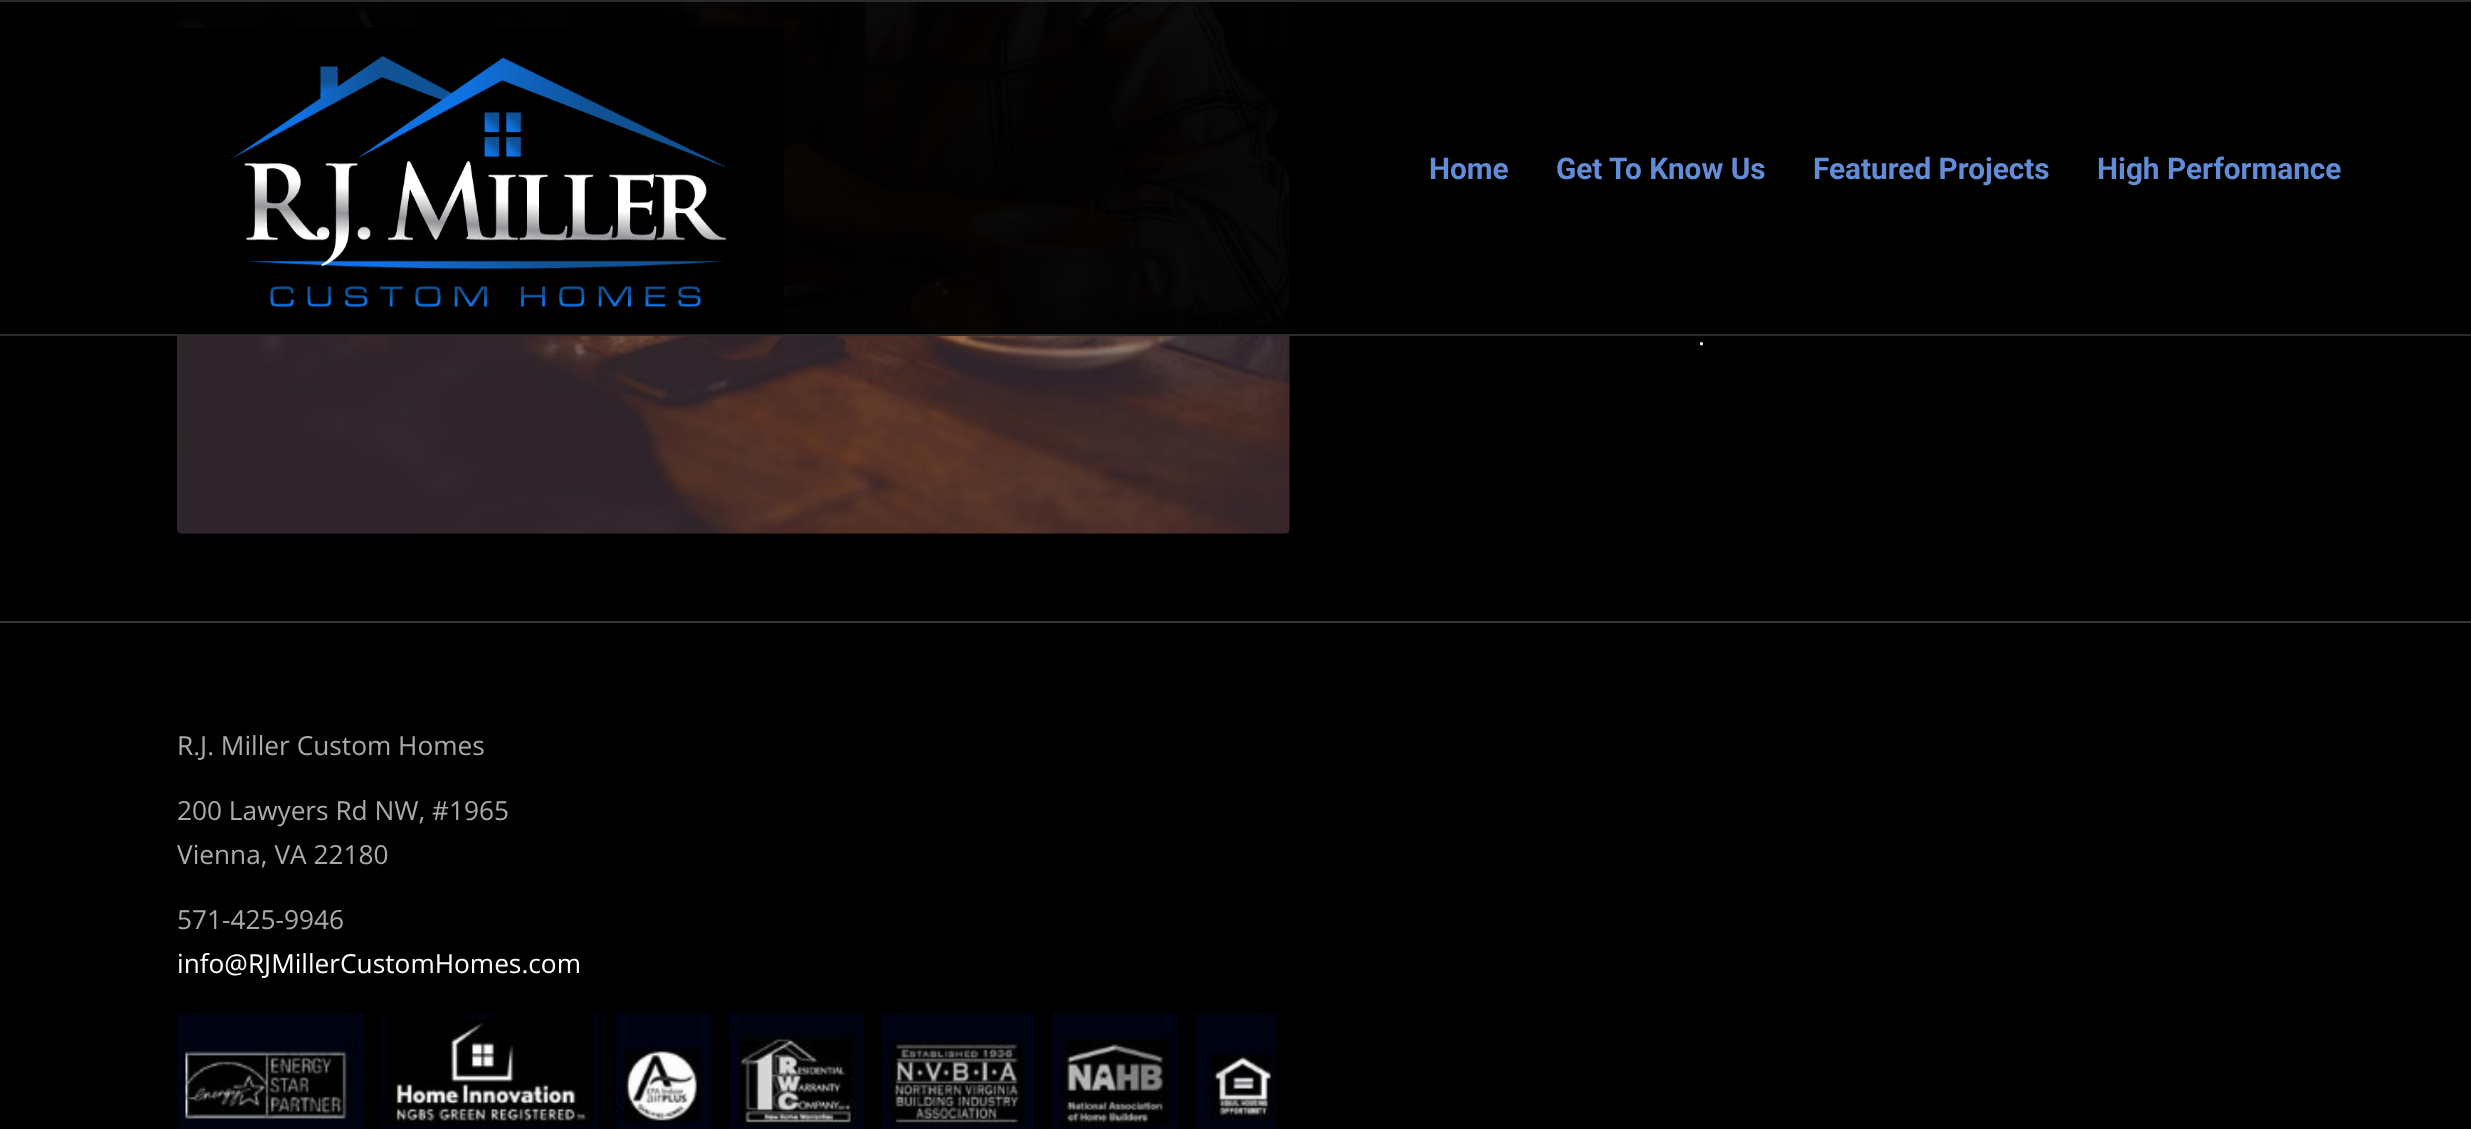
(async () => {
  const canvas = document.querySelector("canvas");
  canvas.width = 2471;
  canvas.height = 1129;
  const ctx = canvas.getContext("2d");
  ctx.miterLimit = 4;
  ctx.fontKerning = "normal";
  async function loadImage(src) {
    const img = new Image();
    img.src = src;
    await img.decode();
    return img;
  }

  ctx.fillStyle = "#000000";
  ctx.fillRect(0, 0, 2471, 1129);
  ctx.drawImage(await loadImage("img/2.png"), 176, 2, 1114, 532);
  for (const [x, y, w, h, color] of [
    [176, 2, 1114, 332, "rgba(0, 0, 0, 0.95)"],
    [0, 0, 2471, 2, "#2b2b2b"],
    [0, 334, 2471, 2, "#2b2b2b"],
  ]) {
    ctx.fillStyle = color;
    ctx.fillRect(x, y, w, h);
  }
  ctx.drawImage(await loadImage("img/1.png"), 177, 28, 607, 307);
  ctx.fillStyle = "#363636";
  ctx.fillRect(0, 621, 2471, 2);
  ctx.drawImage(await loadImage("img/3.png"), 177, 1013, 187, 116);
  ctx.drawImage(await loadImage("img/4.png"), 381, 1013, 218, 116);
  ctx.drawImage(await loadImage("img/5.png"), 616, 1013, 97, 116);
  ctx.drawImage(await loadImage("img/6.png"), 729, 1013, 136, 116);
  ctx.drawImage(await loadImage("img/7.png"), 882, 1013, 153, 116);
  ctx.drawImage(await loadImage("img/8.png"), 1051, 1013, 127, 116);
  ctx.drawImage(await loadImage("img/9.png"), 1195, 1013, 84, 116);
  ctx.font = "bold 29.75px Roboto";
  ctx.fillStyle = "#628dd6";
  for (const [text, x, y] of [
    ["Home", 1429, 179],
    ["Get To Know Us", 1556, 179],
    ["Featured Projects", 1813, 179],
    ["High Performance", 2097, 179],
  ]) {
    ctx.fillText(text, x, y);
  }
  ctx.font = "26.25px Open Sans";
  ctx.fillStyle = "#ffffff";
  ctx.fillText(".", 1698, 345);
  ctx.fillStyle = "#aaaaaa";
  for (const [text, x, y] of [
    ["R.J. Miller Custom Homes", 177, 755],
    ["200 Lawyers Rd NW, #1965", 177, 820],
    ["Vienna, VA 22180", 177, 864],
    ["571-425-9946", 177, 929],
  ]) {
    ctx.fillText(text, x, y);
  }
  ctx.fillStyle = "#ffffff";
  ctx.fillText("info@RJMillerCustomHomes.com", 177, 973);
})();
